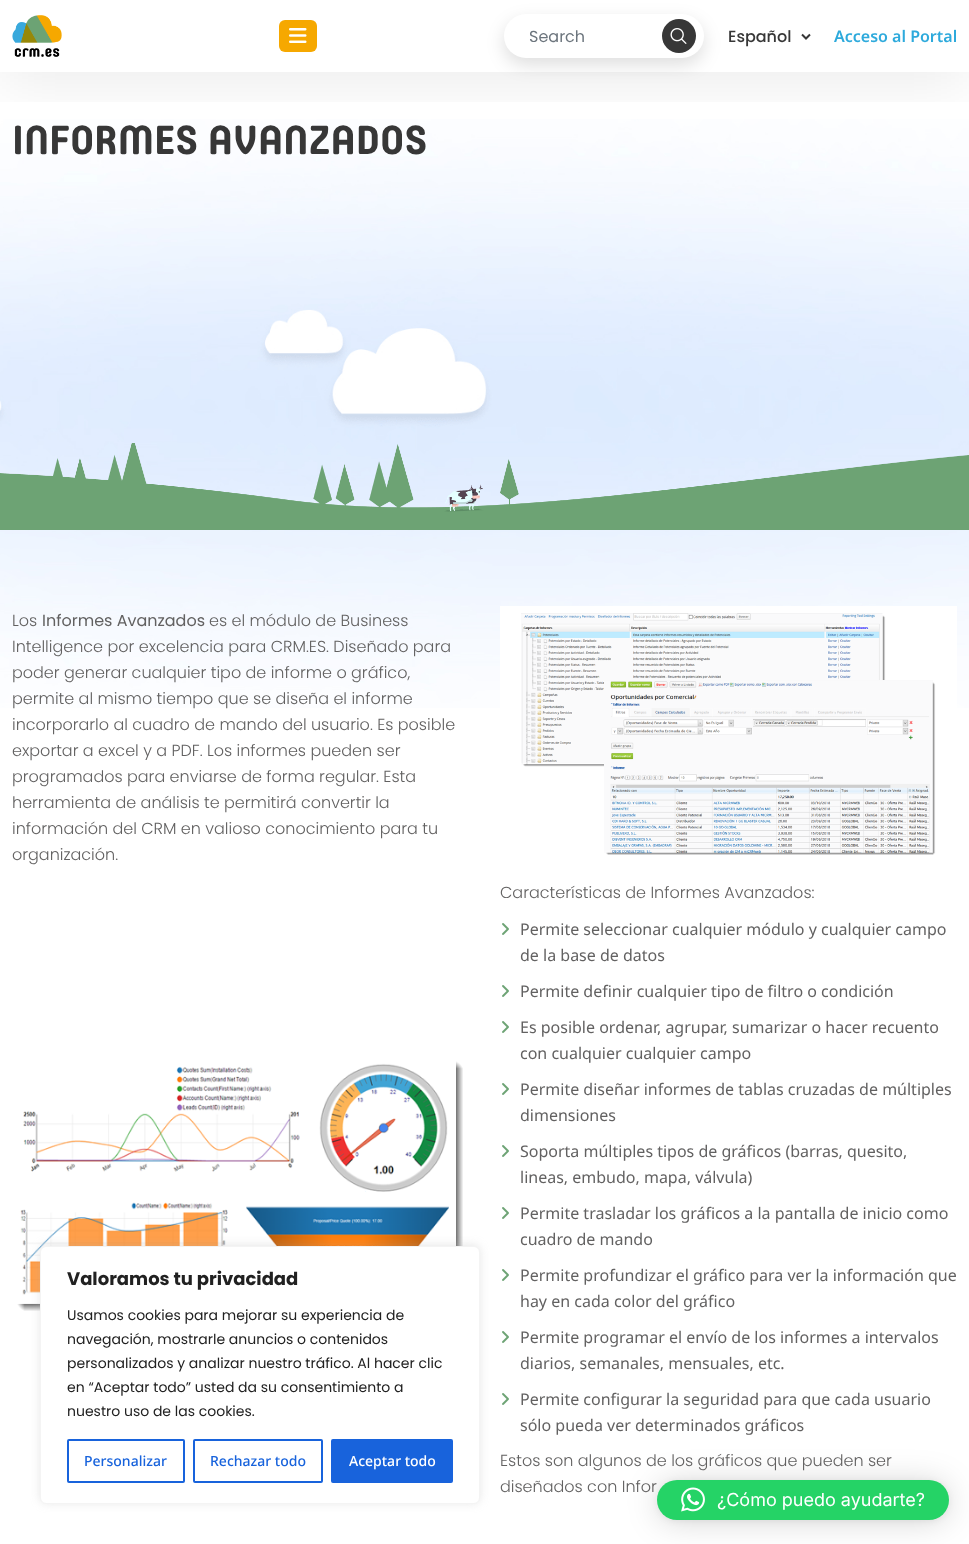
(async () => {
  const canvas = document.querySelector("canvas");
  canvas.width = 969;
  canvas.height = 1544;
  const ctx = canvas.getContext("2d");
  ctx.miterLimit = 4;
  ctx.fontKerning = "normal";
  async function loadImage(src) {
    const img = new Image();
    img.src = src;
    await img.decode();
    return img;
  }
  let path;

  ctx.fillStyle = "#ffffff";
  ctx.fillRect(0, 0, 969, 1544);
  ctx.drawImage(await loadImage("img/4.png"), 0, 119, 969, 389);
  ctx.save();
  ctx.beginPath();
  ctx.rect(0, 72, 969, 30);
  ctx.clip();
  ctx.fillStyle = "rgba(0, 0, 0, 0.08)";
  ctx.filter = "blur(30.5px)";
  ctx.beginPath();
  ctx.rect(0, 10, 969, 72);
  ctx.fill();
  ctx.filter = "none";
  ctx.restore();
  ctx.drawImage(await loadImage("img/1.png"), 12, 15, 50, 42);
  ctx.fillStyle = "#f6a800";
  ctx.beginPath();
  ctx.roundRect(279, 20, 38, 32, 6);
  ctx.fill();
  ctx.drawImage(await loadImage("img/2.png"), 289, 28, 18, 15);
  ctx.fillStyle = "rgba(0, 0, 0, 0.13)";
  ctx.filter = "blur(9px)";
  ctx.beginPath();
  ctx.roundRect(504, 21, 200, 44, 22);
  ctx.fill();
  ctx.filter = "none";
  ctx.fillStyle = "#ffffff";
  ctx.beginPath();
  ctx.roundRect(504, 14, 200, 44, 22);
  ctx.fill();
  ctx.fillStyle = "#373737";
  ctx.beginPath();
  ctx.arc(679, 36, 17, 0, Math.PI * 2);
  ctx.fill();
  ctx.drawImage(await loadImage("img/3.png"), 670, 28, 17, 16);
  path = new Path2D("M802 34.5L806 38.5L810 34.5");
  ctx.strokeStyle = "#373737";
  ctx.lineWidth = 2;
  ctx.stroke(path);
  ctx.drawImage(await loadImage("img/5.png"), 0, 443, 969, 87);
  ctx.drawImage(await loadImage("img/6.png"), 0, 530, 969, 178);
  ctx.drawImage(await loadImage("img/7.png"), 500, 606, 457, 249);
  ctx.drawImage(await loadImage("img/8.png"), 17, 1061, 446, 250);
  ctx.drawImage(await loadImage("img/9.png"), 502, 923, 7, 12);
  ctx.drawImage(await loadImage("img/9.png"), 502, 985, 7, 12);
  ctx.drawImage(await loadImage("img/9.png"), 502, 1021, 7, 12);
  ctx.drawImage(await loadImage("img/9.png"), 502, 1083, 7, 12);
  ctx.drawImage(await loadImage("img/9.png"), 502, 1145, 7, 12);
  ctx.drawImage(await loadImage("img/9.png"), 502, 1207, 7, 12);
  ctx.drawImage(await loadImage("img/9.png"), 502, 1269, 7, 12);
  ctx.drawImage(await loadImage("img/9.png"), 502, 1331, 7, 12);
  ctx.drawImage(await loadImage("img/9.png"), 502, 1393, 7, 12);
  ctx.fillStyle = "rgba(172, 171, 171, 0.3)";
  ctx.filter = "blur(5px)";
  ctx.beginPath();
  ctx.roundRect(40, 1245, 440, 258, 6);
  ctx.fill();
  ctx.filter = "none";
  ctx.fillStyle = "#ffffff";
  ctx.beginPath();
  ctx.roundRect(40.5, 1246.5, 439, 257, 5.5);
  ctx.fill();
  ctx.strokeStyle = "#f4f4f4";
  ctx.lineWidth = 1;
  ctx.stroke();
  ctx.beginPath();
  ctx.roundRect(68, 1440, 116, 42, 1);
  ctx.strokeStyle = "#1863dc";
  ctx.lineWidth = 2;
  ctx.stroke();
  ctx.beginPath();
  ctx.roundRect(194, 1440, 128, 42, 1);
  ctx.stroke();
  ctx.fillStyle = "#1863dc";
  ctx.beginPath();
  ctx.roundRect(332, 1440, 120, 42, 1);
  ctx.fill();
  ctx.stroke();
  ctx.fillStyle = "rgba(0, 0, 0, 0.16)";
  ctx.filter = "blur(16px)";
  ctx.beginPath();
  ctx.roundRect(657, 1482, 292, 40, 20);
  ctx.fill();
  ctx.filter = "none";
  ctx.fillStyle = "rgba(0, 0, 0, 0.06)";
  ctx.filter = "blur(3px)";
  ctx.beginPath();
  ctx.roundRect(657, 1481, 292, 40, 20);
  ctx.fill();
  ctx.filter = "none";
  ctx.fillStyle = "#25d366";
  ctx.beginPath();
  ctx.roundRect(657, 1480, 292, 40, 20);
  ctx.fill();
  ctx.drawImage(await loadImage("img/10.png"), 681, 1487, 24, 25);
  ctx.font = "16px Poppins";
  ctx.fillStyle = "#6c757d";
  ctx.fillText("Search", 529, 42);
  ctx.font = "500 16px Poppins";
  ctx.fillStyle = "#373737";
  ctx.fillText("Español", 728, 42);
  ctx.font = "600 16px Noto Sans";
  ctx.fillStyle = "#2eaadc";
  ctx.fillText("Acceso al Portal", 834, 42);
  ctx.font = "bold 40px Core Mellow";
  ctx.fillStyle = "#373737";
  ctx.fillText("INFORMES AVANZADOS", 12, 154);
  ctx.font = "300 16px Poppins";
  ctx.fillStyle = "#626161";
  ctx.fillText("Los", 12, 626);
  ctx.font = "16px Poppins";
  ctx.fillText("Informes Avanzados", 42, 626);
  ctx.font = "300 16px Poppins";
  for (const [text, x, y] of [
    ["es el módulo de Business", 209, 626],
    ["Intelligence por excelencia para CRM.ES. Diseñado para", 12, 652],
    ["poder generar cualquier tipo de informe o gráfico,", 12, 678],
    ["permite al mismo tiempo que se diseña el informe", 12, 704],
    ["incorporarlo al cuadro de mando del usuario. Es posible", 12, 730],
    ["exportar a excel y a PDF. Los informes pueden ser", 12, 756],
    ["programados para enviarse de forma regular. Esta", 12, 782],
    ["herramienta de análisis te permitirá convertir la", 12, 808],
    ["información del CRM en valioso conocimiento para tu", 12, 834],
    ["organización.", 12, 860],
    ["Características de Informes Avanzados:", 500, 898],
  ]) {
    ctx.fillText(text, x, y);
  }
  ctx.font = "16px Noto Sans";
  for (const [text, x, y] of [
    ["Permite seleccionar cualquier módulo y cualquier campo", 520, 935],
    ["de la base de datos", 520, 961],
    ["Permite definir cualquier tipo de filtro o condición", 520, 997],
    ["Es posible ordenar, agrupar, sumarizar o hacer recuento", 520, 1033],
    ["con cualquier cualquier campo", 520, 1059],
    ["Permite diseñar informes de tablas cruzadas de múltiples", 520, 1095],
    ["dimensiones", 520, 1121],
    ["Soporta múltiples tipos de gráficos (barras, quesito,", 520, 1157],
    ["lineas, embudo, mapa, válvula)", 520, 1183],
    ["Permite trasladar los gráficos a la pantalla de inicio como", 520, 1219],
    ["cuadro de mando", 520, 1245],
    ["Permite profundizar el gráfico para ver la información que", 520, 1281],
    ["hay en cada color del gráfico", 520, 1307],
    ["Permite programar el envío de los informes a intervalos", 520, 1343],
    ["diarios, semanales, mensuales, etc.", 520, 1369],
    ["Permite configurar la seguridad para que cada usuario", 520, 1405],
    ["sólo pueda ver determinados gráficos", 520, 1431],
  ]) {
    ctx.fillText(text, x, y);
  }
  ctx.font = "300 16px Poppins";
  ctx.fillText("Estos son algunos de los gráficos que pueden ser", 500, 1466);
  ctx.fillText("diseñados con Infor", 500, 1492);
  ctx.font = "bold 18px Poppins";
  ctx.fillStyle = "#212121";
  ctx.fillText("Valoramos tu privacidad", 67, 1285);
  ctx.font = "14px Poppins";
  for (const [text, x, y] of [
    ["Usamos cookies para mejorar su experiencia de", 67, 1320],
    ["navegación, mostrarle anuncios o contenidos", 67, 1344],
    ["personalizados y analizar nuestro tráfico. Al hacer clic", 67, 1368],
    ["en “Aceptar todo” usted da su consentimiento a", 67, 1392],
    ["nuestro uso de las cookies.", 67, 1416],
  ]) {
    ctx.fillText(text, x, y);
  }
  ctx.font = "500 14px Noto Sans";
  ctx.fillStyle = "#1863dc";
  ctx.fillText("Personalizar", 84, 1466);
  ctx.fillText("Rechazar todo", 210, 1466);
  ctx.fillStyle = "#ffffff";
  ctx.fillText("Aceptar todo", 349, 1466);
  ctx.font = "18px Inter";
  ctx.fillText("¿Cómo puedo ayudarte?", 717, 1506);
})();
